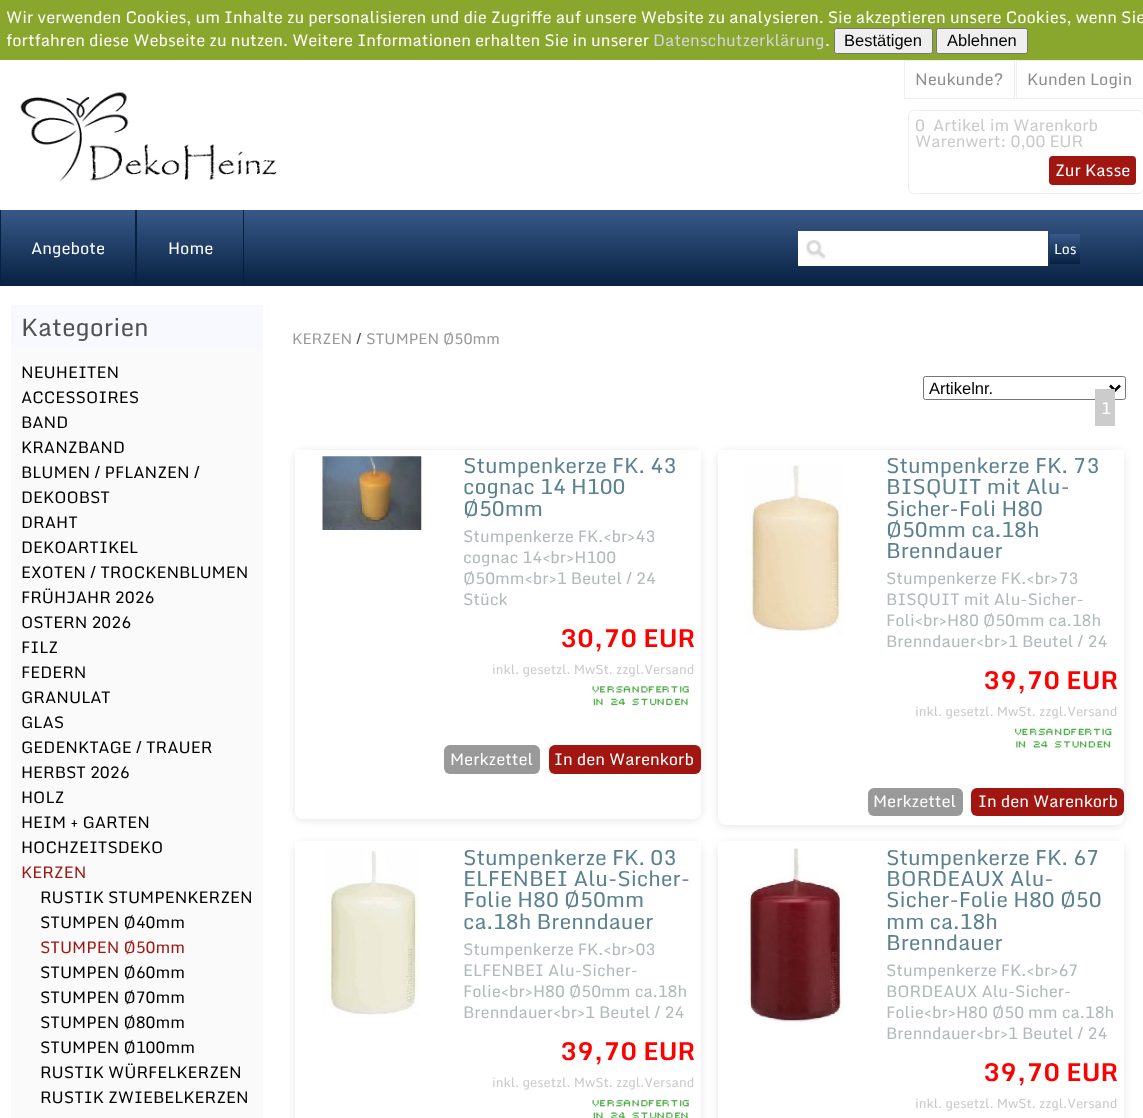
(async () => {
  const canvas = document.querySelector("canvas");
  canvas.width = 1143;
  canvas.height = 1118;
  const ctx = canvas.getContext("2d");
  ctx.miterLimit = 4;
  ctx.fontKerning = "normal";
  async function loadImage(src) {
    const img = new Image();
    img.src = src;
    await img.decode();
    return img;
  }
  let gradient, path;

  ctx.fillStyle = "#ffffff";
  ctx.fillRect(0, 0, 1143, 1118);
  ctx.fillStyle = "#8aa72d";
  ctx.fillRect(0, 0, 1143, 60);
  ctx.fillStyle = "#efefef";
  ctx.beginPath();
  ctx.roundRect(834.5, 28.5, 98, 25, 2);
  ctx.fill();
  ctx.strokeStyle = "#767676";
  ctx.stroke();
  ctx.beginPath();
  ctx.roundRect(936.5, 28.5, 91, 25, 2);
  ctx.fill();
  ctx.stroke();
  gradient = ctx.createLinearGradient(572, 210, 572, 286);
  gradient.addColorStop(0, "#385988");
  gradient.addColorStop(1, "#062041");
  ctx.fillStyle = gradient;
  ctx.fillRect(1, 210, 1142, 76);
  for (const [x, y, w, h, color] of [
    [135, 210, 2, 76, "#062041"],
    [0, 210, 1, 76, "#062041"],
    [243, 210, 1, 76, "#062041"],
  ]) {
    ctx.fillStyle = color;
    ctx.fillRect(x, y, w, h);
  }
  ctx.strokeStyle = "#eeeeee";
  ctx.strokeRect(904.5, 60.5, 110, 38);
  ctx.strokeRect(1016.5, 60.5, 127, 38);
  ctx.drawImage(await loadImage("img/1.png"), 20, 91, 257, 91);
  ctx.beginPath();
  ctx.roundRect(908.5, 110.5, 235, 83, 5.5);
  ctx.stroke();
  ctx.fillStyle = "#a21612";
  ctx.beginPath();
  ctx.roundRect(1049, 156, 87, 29, 4);
  ctx.fill();
  ctx.fillStyle = "#ffffff";
  ctx.fillRect(798, 231, 250, 35);
  ctx.drawImage(await loadImage("img/2.png"), 806, 240, 20, 19);
  gradient = ctx.createLinearGradient(1065, 234, 1065, 264);
  gradient.addColorStop(0, "#385988");
  gradient.addColorStop(1, "#062041");
  ctx.fillStyle = gradient;
  ctx.fillRect(1050, 234, 30, 30);
  ctx.fillStyle = "#f8f9ff";
  ctx.fillRect(11, 305, 252, 44);
  ctx.fillStyle = "#fafafa";
  ctx.fillRect(11, 349, 252, 769);
  ctx.beginPath();
  ctx.roundRect(923.5, 376.5, 202, 23, 2);
  ctx.strokeStyle = "#767676";
  ctx.stroke();
  path = new Path2D("M1110 385.5L1115 390.5L1120 385.5");
  ctx.strokeStyle = "#000000";
  ctx.lineWidth = 2.5;
  ctx.stroke(path);
  ctx.fillStyle = "#cccccc";
  ctx.fillRect(1095, 389, 20, 37);
  ctx.save();
  path = new Path2D("M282 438H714V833H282ZM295 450H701V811C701 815.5 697.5 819 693 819H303C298.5 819 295 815.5 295 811Z");
  ctx.clip(path, "evenodd");
  ctx.fillStyle = "rgba(0, 0, 0, 0.1)";
  ctx.filter = "blur(4px)";
  ctx.beginPath();
  ctx.roundRect(295, 451, 406, 369, 8);
  ctx.fill();
  ctx.filter = "none";
  ctx.restore();
  ctx.fillStyle = "rgba(255, 255, 255, 0.7)";
  ctx.beginPath();
  ctx.roundRect(295, 450, 406, 369, [0, 0, 8, 8]);
  ctx.fill();
  ctx.drawImage(await loadImage("img/3.png"), 322, 456, 100, 74);
  ctx.drawImage(await loadImage("img/4.png"), 592, 686, 97, 20);
  ctx.fillStyle = "#999999";
  ctx.beginPath();
  ctx.roundRect(444, 745, 96, 29, 6);
  ctx.fill();
  ctx.fillStyle = "#a21612";
  ctx.beginPath();
  ctx.roundRect(549, 745, 152, 29, 6);
  ctx.fill();
  ctx.save();
  path = new Path2D("M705 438H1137V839H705ZM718 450H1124V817C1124 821.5 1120.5 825 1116 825H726C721.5 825 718 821.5 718 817Z");
  ctx.clip(path, "evenodd");
  ctx.fillStyle = "rgba(0, 0, 0, 0.1)";
  ctx.filter = "blur(4px)";
  ctx.beginPath();
  ctx.roundRect(718, 451, 406, 375, 8);
  ctx.fill();
  ctx.filter = "none";
  ctx.restore();
  ctx.drawImage(await loadImage("img/5.png"), 745, 465, 98, 172);
  ctx.drawImage(await loadImage("img/6.png"), 1014, 728, 98, 20);
  ctx.fillStyle = "#999999";
  ctx.beginPath();
  ctx.roundRect(868, 788, 95, 28, 6);
  ctx.fill();
  ctx.fillStyle = "#a21612";
  ctx.beginPath();
  ctx.roundRect(971, 788, 153, 28, 6);
  ctx.fill();
  ctx.fillStyle = "rgba(0, 0, 0, 0.1)";
  ctx.filter = "blur(4px)";
  ctx.beginPath();
  ctx.roundRect(295, 843, 406, 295, 8);
  ctx.fill();
  ctx.filter = "none";
  ctx.fillStyle = "#ffffff";
  ctx.fillRect(295, 841, 406, 277);
  ctx.drawImage(await loadImage("img/7.png"), 323, 847, 97, 169);
  ctx.drawImage(await loadImage("img/8.png"), 592, 1099, 97, 19);
  ctx.save();
  path = new Path2D("M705 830H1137V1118H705ZM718 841H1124V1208C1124 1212.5 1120.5 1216 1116 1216H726C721.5 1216 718 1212.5 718 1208Z");
  ctx.clip(path, "evenodd");
  ctx.fillStyle = "rgba(0, 0, 0, 0.1)";
  ctx.filter = "blur(4px)";
  ctx.beginPath();
  ctx.roundRect(718, 843, 406, 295, 8);
  ctx.fill();
  ctx.filter = "none";
  ctx.restore();
  ctx.drawImage(await loadImage("img/9.png"), 745, 847, 99, 178);
  ctx.font = "16.25px Monda";
  ctx.fillText("Wir verwenden Cookies, um Inhalte zu personalisieren und die Zugriffe auf unsere Website zu analysieren. Sie akzeptieren unsere Cookies, wenn Sie", 6, 23);
  ctx.fillText("fortfahren diese Webseite zu nutzen. Weitere Informationen erhalten Sie in unserer", 6, 46);
  ctx.fillStyle = "#d4d4d4";
  ctx.fillText("Datenschutzerklärung", 653, 46);
  ctx.fillStyle = "#ffffff";
  ctx.fillText(".", 825, 46);
  ctx.font = "16.5px Liberation Sans";
  ctx.fillStyle = "#000000";
  ctx.fillText("Bestätigen", 844, 46);
  ctx.fillText("Ablehnen", 947, 46);
  ctx.font = "16.25px Monda";
  ctx.fillStyle = "#ffffff";
  ctx.fillText("Angebote", 31, 254);
  ctx.fillText("Home", 168, 254);
  ctx.fillStyle = "#8d8d8d";
  ctx.fillText("Neukunde?", 915, 85);
  ctx.fillText("Kunden Login", 1027, 85);
  ctx.fillStyle = "#cacaca";
  for (const [text, x, y] of [
    ["0", 915, 131],
    ["Artikel im Warenkorb", 933, 131],
    ["Warenwert: 0,00 EUR", 915, 147],
  ]) {
    ctx.fillText(text, x, y);
  }
  ctx.fillStyle = "#ffffff";
  ctx.fillText("Zur Kasse", 1055, 176);
  ctx.font = "14px Monda";
  ctx.fillText("Los", 1054, 254);
  ctx.font = "24.5px Monda";
  ctx.fillStyle = "#525252";
  ctx.fillText("Kategorien", 21, 336);
  ctx.font = "16.25px Monda";
  ctx.fillStyle = "#000000";
  for (const [text, x, y] of [
    ["NEUHEITEN", 21, 378],
    ["ACCESSOIRES", 21, 403],
    ["BAND", 21, 428],
    ["KRANZBAND", 21, 453],
    ["BLUMEN / PFLANZEN /", 21, 478],
    ["DEKOOBST", 21, 503],
    ["DRAHT", 21, 528],
    ["DEKOARTIKEL", 21, 553],
    ["EXOTEN / TROCKENBLUMEN", 21, 578],
    ["FRÜHJAHR 2026", 21, 603],
    ["OSTERN 2026", 21, 628],
    ["FILZ", 21, 653],
    ["FEDERN", 21, 678],
    ["GRANULAT", 21, 703],
    ["GLAS", 21, 728],
    ["GEDENKTAGE / TRAUER", 21, 753],
    ["HERBST 2026", 21, 778],
    ["HOLZ", 21, 803],
    ["HEIM + GARTEN", 21, 828],
    ["HOCHZEITSDEKO", 21, 853],
  ]) {
    ctx.fillText(text, x, y);
  }
  ctx.fillStyle = "#a21612";
  ctx.fillText("KERZEN", 21, 878);
  ctx.fillStyle = "#000000";
  ctx.fillText("RUSTIK STUMPENKERZEN", 40, 903);
  ctx.fillText("STUMPEN Ø40mm", 40, 928);
  ctx.fillStyle = "#a21612";
  ctx.fillText("STUMPEN Ø50mm", 40, 953);
  ctx.fillStyle = "#000000";
  for (const [text, x, y] of [
    ["STUMPEN Ø60mm", 40, 978],
    ["STUMPEN Ø70mm", 40, 1003],
    ["STUMPEN Ø80mm", 40, 1028],
    ["STUMPEN Ø100mm", 40, 1053],
    ["RUSTIK WÜRFELKERZEN", 40, 1078],
    ["RUSTIK ZWIEBELKERZEN", 40, 1103],
  ]) {
    ctx.fillText(text, x, y);
  }
  ctx.font = "15px Monda";
  ctx.fillStyle = "#999999";
  ctx.fillText("KERZEN", 292, 344);
  ctx.fillStyle = "#525252";
  ctx.fillText("/", 356, 344);
  ctx.fillStyle = "#999999";
  ctx.fillText("STUMPEN Ø50mm", 366, 344);
  ctx.font = "16.5px Liberation Sans";
  ctx.fillStyle = "#000000";
  ctx.fillText("Artikelnr.", 929, 394);
  ctx.font = "16.25px Monda";
  ctx.fillStyle = "#ffffff";
  ctx.fillText("1", 1101, 414);
  ctx.font = "21.1px Monda";
  ctx.fillStyle = "#5b8190";
  for (const [text, x, y] of [
    ["Stumpenkerze FK. 43", 463, 473],
    ["cognac 14 H100", 463, 494],
    ["Ø50mm", 463, 516],
  ]) {
    ctx.fillText(text, x, y);
  }
  ctx.font = "16.25px Monda";
  ctx.fillStyle = "#b1b9bb";
  for (const [text, x, y] of [
    ["Stumpenkerze FK.<br>43", 463, 542],
    ["cognac 14<br>H100", 463, 563],
    ["Ø50mm<br>1 Beutel / 24", 463, 584],
    ["Stück", 463, 605],
  ]) {
    ctx.fillText(text, x, y);
  }
  ctx.font = "bold 24.5px Monda";
  ctx.fillStyle = "#ff0000";
  ctx.fillText("30,70 EUR", 560, 647);
  ctx.font = "13px Monda";
  ctx.fillStyle = "#cacaca";
  ctx.fillText("inkl. gesetzl. MwSt. zzgl.Versand", 492, 674);
  ctx.font = "16.25px Monda";
  ctx.fillStyle = "#ffffff";
  ctx.fillText("Merkzettel", 450, 765);
  ctx.fillText("In den Warenkorb", 554, 765);
  ctx.font = "21.1px Monda";
  ctx.fillStyle = "#5b8190";
  for (const [text, x, y] of [
    ["Stumpenkerze FK. 73", 886, 473],
    ["BISQUIT mit Alu-", 886, 494],
    ["Sicher-Foli H80", 886, 516],
    ["Ø50mm ca.18h", 886, 537],
    ["Brenndauer", 886, 558],
  ]) {
    ctx.fillText(text, x, y);
  }
  ctx.font = "16.25px Monda";
  ctx.fillStyle = "#b1b9bb";
  for (const [text, x, y] of [
    ["Stumpenkerze FK.<br>73", 886, 584],
    ["BISQUIT mit Alu-Sicher-", 886, 605],
    ["Foli<br>H80 Ø50mm ca.18h", 886, 626],
    ["Brenndauer<br>1 Beutel / 24", 886, 647],
  ]) {
    ctx.fillText(text, x, y);
  }
  ctx.font = "bold 24.5px Monda";
  ctx.fillStyle = "#ff0000";
  ctx.fillText("39,70 EUR", 983, 689);
  ctx.font = "13px Monda";
  ctx.fillStyle = "#cacaca";
  ctx.fillText("inkl. gesetzl. MwSt. zzgl.Versand", 915, 716);
  ctx.font = "16.25px Monda";
  ctx.fillStyle = "#ffffff";
  ctx.fillText("Merkzettel", 873, 807);
  ctx.fillText("In den Warenkorb", 978, 807);
  ctx.font = "21.1px Monda";
  ctx.fillStyle = "#5b8190";
  for (const [text, x, y] of [
    ["Stumpenkerze FK. 03", 463, 865],
    ["ELFENBEI Alu-Sicher-", 463, 886],
    ["Folie H80 Ø50mm", 463, 907],
    ["ca.18h Brenndauer", 463, 929],
  ]) {
    ctx.fillText(text, x, y);
  }
  ctx.font = "16.25px Monda";
  ctx.fillStyle = "#b1b9bb";
  for (const [text, x, y] of [
    ["Stumpenkerze FK.<br>03", 463, 955],
    ["ELFENBEI Alu-Sicher-", 463, 976],
    ["Folie<br>H80 Ø50mm ca.18h", 463, 997],
    ["Brenndauer<br>1 Beutel / 24", 463, 1018],
  ]) {
    ctx.fillText(text, x, y);
  }
  ctx.font = "bold 24.5px Monda";
  ctx.fillStyle = "#ff0000";
  ctx.fillText("39,70 EUR", 560, 1060);
  ctx.font = "13px Monda";
  ctx.fillStyle = "#cacaca";
  ctx.fillText("inkl. gesetzl. MwSt. zzgl.Versand", 492, 1087);
  ctx.font = "21.1px Monda";
  ctx.fillStyle = "#5b8190";
  for (const [text, x, y] of [
    ["Stumpenkerze FK. 67", 886, 865],
    ["BORDEAUX Alu-", 886, 886],
    ["Sicher-Folie H80 Ø50", 886, 907],
    ["mm ca.18h", 886, 929],
    ["Brenndauer", 886, 950],
  ]) {
    ctx.fillText(text, x, y);
  }
  ctx.font = "16.25px Monda";
  ctx.fillStyle = "#b1b9bb";
  for (const [text, x, y] of [
    ["Stumpenkerze FK.<br>67", 886, 976],
    ["BORDEAUX Alu-Sicher-", 886, 997],
    ["Folie<br>H80 Ø50 mm ca.18h", 886, 1018],
    ["Brenndauer<br>1 Beutel / 24", 886, 1039],
  ]) {
    ctx.fillText(text, x, y);
  }
  ctx.font = "bold 24.5px Monda";
  ctx.fillStyle = "#ff0000";
  ctx.fillText("39,70 EUR", 983, 1081);
  ctx.font = "13px Monda";
  ctx.fillStyle = "#cacaca";
  ctx.fillText("inkl. gesetzl. MwSt. zzgl.Versand", 915, 1108);
})();
